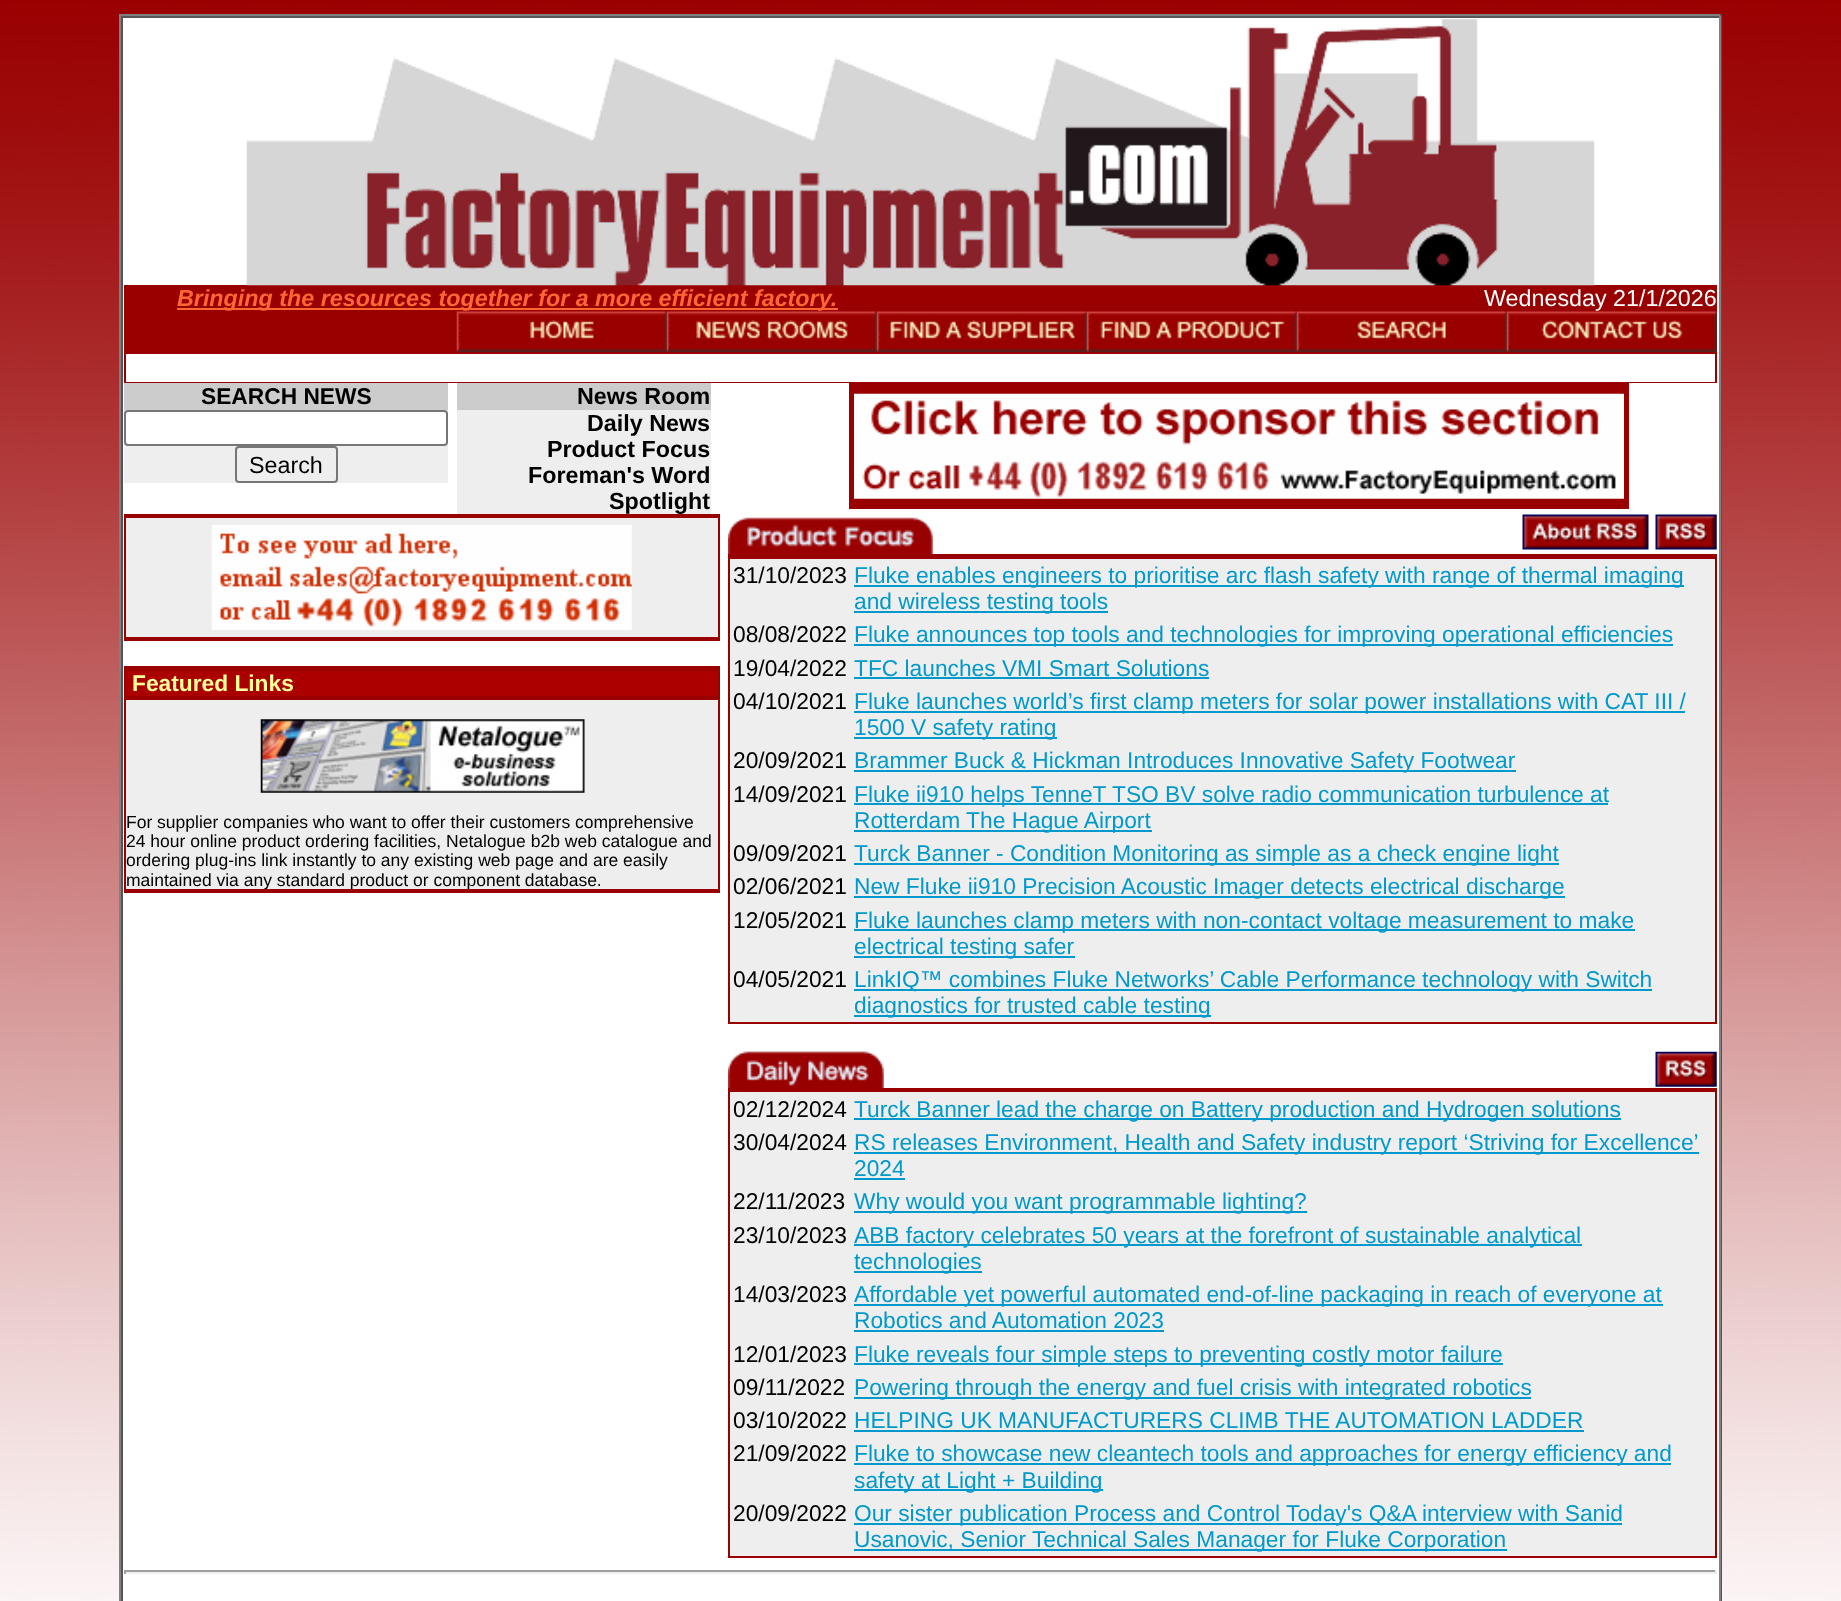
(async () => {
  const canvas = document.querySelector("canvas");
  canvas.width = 1841;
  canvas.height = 1601;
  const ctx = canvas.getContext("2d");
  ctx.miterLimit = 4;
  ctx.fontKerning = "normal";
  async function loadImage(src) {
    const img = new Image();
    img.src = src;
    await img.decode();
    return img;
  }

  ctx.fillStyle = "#ffffff";
  ctx.fillRect(0, 0, 1841, 1601);
  ctx.drawImage(await loadImage("img/1.png"), 0, 0, 1841, 1601);
  for (const [x, y, w, h, color] of [
    [123, 18, 1596, 1583, "#ffffff"],
    [119, 14, 1603, 2, "#808080"],
    [1720, 14, 2, 1587, "#555555"],
    [119, 14, 2, 1587, "#808080"],
    [121, 16, 1599, 2, "#555555"],
    [1719, 16, 2, 1585, "#808080"],
    [121, 16, 2, 1585, "#555555"],
    [124, 285, 1593, 98, "#990000"],
  ]) {
    ctx.fillStyle = color;
    ctx.fillRect(x, y, w, h);
  }
  ctx.drawImage(await loadImage("img/2.png"), 246, 19, 1349, 267);
  ctx.fillStyle = "#ff6633";
  ctx.fillRect(177, 308, 661, 2);
  ctx.drawImage(await loadImage("img/3.png"), 456, 311, 211, 41);
  ctx.drawImage(await loadImage("img/4.png"), 666, 311, 211, 41);
  ctx.drawImage(await loadImage("img/5.png"), 876, 311, 211, 41);
  ctx.drawImage(await loadImage("img/6.png"), 1086, 311, 211, 41);
  ctx.drawImage(await loadImage("img/7.png"), 1296, 311, 211, 41);
  ctx.drawImage(await loadImage("img/8.png"), 1506, 311, 211, 41);
  for (const [x, y, w, h, color] of [
    [126, 354, 1589, 28, "#ffffff"],
    [124, 383, 324, 27, "#cccccc"],
    [124, 410, 324, 73, "#eeeeee"],
  ]) {
    ctx.fillStyle = color;
    ctx.fillRect(x, y, w, h);
  }
  ctx.fillStyle = "#ffffff";
  ctx.beginPath();
  ctx.roundRect(125, 411, 322, 34, 3);
  ctx.fill();
  ctx.strokeStyle = "#767676";
  ctx.lineWidth = 2;
  ctx.stroke();
  ctx.beginPath();
  ctx.roundRect(236, 447, 101, 35, 3);
  ctx.stroke();
  ctx.fillStyle = "#cccccc";
  ctx.fillRect(457, 383, 254, 27);
  ctx.fillStyle = "#eeeeee";
  ctx.fillRect(457, 410, 254, 104);
  ctx.strokeStyle = "#990000";
  ctx.lineWidth = 4;
  ctx.strokeRect(851, 385, 776, 122);
  ctx.fillStyle = "#990000";
  ctx.fillRect(853, 387, 772, 118);
  ctx.drawImage(await loadImage("img/9.png"), 854, 393, 770, 106);
  for (const [x, y, w, h, color] of [
    [124, 514, 596, 4, "#990000"],
    [124, 518, 2, 119, "#990000"],
    [126, 518, 592, 119, "#eeeeee"],
  ]) {
    ctx.fillStyle = color;
    ctx.fillRect(x, y, w, h);
  }
  ctx.drawImage(await loadImage("img/10.png"), 211, 525, 421, 105);
  for (const [x, y, w, h, color] of [
    [718, 518, 2, 119, "#990000"],
    [124, 637, 596, 4, "#990000"],
    [124, 670, 2, 219, "#990000"],
    [718, 670, 2, 219, "#990000"],
    [124, 666, 596, 5, "#990000"],
    [126, 700, 592, 189, "#eeeeee"],
    [126, 671, 592, 25, "#aa0000"],
    [126, 696, 592, 4, "#990000"],
  ]) {
    ctx.fillStyle = color;
    ctx.fillRect(x, y, w, h);
  }
  ctx.drawImage(await loadImage("img/11.png"), 260, 719, 325, 74);
  ctx.drawImage(await loadImage("img/12.png"), 728, 517, 205, 37);
  ctx.drawImage(await loadImage("img/13.png"), 1522, 514, 127, 36);
  ctx.drawImage(await loadImage("img/14.png"), 1655, 514, 62, 36);
  for (const [x, y, w, h, color] of [
    [728, 558, 2, 464, "#990000"],
    [1715, 558, 2, 464, "#990000"],
    [728, 554, 989, 5, "#990000"],
    [730, 559, 985, 59, "#eeeeee"],
    [854, 585, 830, 2, "#0099cc"],
    [854, 611, 254, 2, "#0099cc"],
    [730, 618, 985, 33, "#eeeeee"],
    [854, 644, 819, 2, "#0099cc"],
    [730, 651, 985, 33, "#eeeeee"],
    [854, 677, 355, 2, "#0099cc"],
    [730, 684, 985, 60, "#eeeeee"],
    [854, 711, 831, 2, "#0099cc"],
    [854, 737, 203, 2, "#0099cc"],
    [730, 744, 985, 33, "#eeeeee"],
    [854, 770, 662, 2, "#0099cc"],
    [730, 777, 985, 60, "#eeeeee"],
    [854, 803, 754, 2, "#0099cc"],
    [854, 830, 298, 2, "#0099cc"],
    [730, 837, 985, 33, "#eeeeee"],
    [854, 863, 705, 2, "#0099cc"],
    [730, 870, 985, 33, "#eeeeee"],
    [854, 896, 711, 2, "#0099cc"],
    [730, 903, 985, 60, "#eeeeee"],
    [854, 929, 781, 2, "#0099cc"],
    [854, 956, 221, 2, "#0099cc"],
    [730, 963, 985, 59, "#eeeeee"],
    [854, 989, 798, 2, "#0099cc"],
    [854, 1015, 357, 2, "#0099cc"],
    [728, 1022, 989, 2, "#990000"],
  ]) {
    ctx.fillStyle = color;
    ctx.fillRect(x, y, w, h);
  }
  ctx.drawImage(await loadImage("img/15.png"), 728, 1051, 156, 37);
  ctx.drawImage(await loadImage("img/16.png"), 1655, 1051, 62, 36);
  for (const [x, y, w, h, color] of [
    [728, 1088, 989, 4, "#990000"],
    [728, 1092, 2, 464, "#990000"],
    [730, 1092, 985, 33, "#eeeeee"],
    [854, 1118, 767, 2, "#0099cc"],
    [730, 1125, 985, 60, "#eeeeee"],
    [854, 1152, 845, 2, "#0099cc"],
    [854, 1178, 51, 2, "#0099cc"],
    [730, 1185, 985, 33, "#eeeeee"],
    [854, 1211, 453, 2, "#0099cc"],
    [730, 1218, 985, 60, "#eeeeee"],
    [854, 1244, 728, 2, "#0099cc"],
    [854, 1271, 128, 2, "#0099cc"],
    [730, 1278, 985, 59, "#eeeeee"],
    [854, 1304, 809, 2, "#0099cc"],
    [854, 1330, 310, 2, "#0099cc"],
    [730, 1337, 985, 33, "#eeeeee"],
    [854, 1363, 649, 2, "#0099cc"],
    [730, 1370, 985, 34, "#eeeeee"],
    [854, 1397, 677, 2, "#0099cc"],
    [730, 1404, 985, 33, "#eeeeee"],
    [854, 1430, 730, 2, "#0099cc"],
    [730, 1437, 985, 59, "#eeeeee"],
    [854, 1463, 817, 2, "#0099cc"],
    [854, 1489, 249, 2, "#0099cc"],
    [730, 1496, 985, 60, "#eeeeee"],
    [854, 1523, 768, 2, "#0099cc"],
    [854, 1549, 653, 2, "#0099cc"],
    [1715, 1092, 2, 464, "#990000"],
    [728, 1556, 989, 2, "#990000"],
    [124, 1570, 1593, 2, "#9f9f9f"],
    [1715, 1570, 2, 4, "#eeeeee"],
    [124, 1572, 1593, 2, "#eeeeee"],
    [124, 1570, 2, 4, "#9f9f9f"],
  ]) {
    ctx.fillStyle = color;
    ctx.fillRect(x, y, w, h);
  }
  ctx.font = "italic bold 23.3px Liberation Sans";
  ctx.fillStyle = "#ff6633";
  ctx.fillText("Bringing the resources together for a more efficient factory.", 177, 306);
  ctx.font = "23.3px Liberation Sans";
  ctx.fillStyle = "#ffffff";
  ctx.fillText("Wednesday 21/1/2026", 1484, 306);
  ctx.font = "bold 22.75px Liberation Sans";
  ctx.fillStyle = "#000000";
  ctx.fillText("SEARCH NEWS", 201, 404);
  ctx.font = "23.3px Liberation Sans";
  ctx.fillText("Search", 249, 473);
  ctx.font = "bold 23.3px Liberation Sans";
  for (const [text, x, y] of [
    ["News Room", 577, 404],
    ["Daily News", 587, 431],
    ["Product Focus", 547, 457],
    ["Foreman's Word", 528, 483],
    ["Spotlight", 609, 509],
  ]) {
    ctx.fillText(text, x, y);
  }
  ctx.font = "bold 22.75px Liberation Sans";
  ctx.fillStyle = "#ffff99";
  ctx.fillText("Featured Links", 132, 691);
  ctx.font = "17.5px Liberation Sans";
  ctx.fillStyle = "#000000";
  for (const [text, x, y] of [
    ["For supplier companies who want to offer their customers comprehensive", 126, 828],
    ["24 hour online product ordering facilities, Netalogue b2b web catalogue and", 126, 847],
    ["ordering plug-ins link instantly to any existing web page and are easily", 126, 866],
    ["maintained via any standard product or component database.", 126, 886],
  ]) {
    ctx.fillText(text, x, y);
  }
  ctx.fillStyle = "#990000";
  ctx.fillRect(124, 889, 596, 4);
  ctx.font = "22.75px Liberation Sans";
  ctx.fillStyle = "#000000";
  ctx.fillText("31/10/2023", 733, 583);
  ctx.fillStyle = "#0099cc";
  ctx.fillText("Fluke enables engineers to prioritise arc flash safety with range of thermal imaging", 854, 583);
  ctx.fillText("and wireless testing tools", 854, 609);
  ctx.fillStyle = "#000000";
  ctx.fillText("08/08/2022", 733, 642);
  ctx.fillStyle = "#0099cc";
  ctx.fillText("Fluke announces top tools and technologies for improving operational efficiencies", 854, 642);
  ctx.fillStyle = "#000000";
  ctx.fillText("19/04/2022", 733, 676);
  ctx.fillStyle = "#0099cc";
  ctx.fillText("TFC launches VMI Smart Solutions", 854, 676);
  ctx.fillStyle = "#000000";
  ctx.fillText("04/10/2021", 733, 709);
  ctx.fillStyle = "#0099cc";
  ctx.fillText("Fluke launches world’s first clamp meters for solar power installations with CAT III /", 854, 709);
  ctx.fillText("1500 V safety rating", 854, 735);
  ctx.fillStyle = "#000000";
  ctx.fillText("20/09/2021", 733, 768);
  ctx.fillStyle = "#0099cc";
  ctx.fillText("Brammer Buck & Hickman Introduces Innovative Safety Footwear", 854, 768);
  ctx.fillStyle = "#000000";
  ctx.fillText("14/09/2021", 733, 802);
  ctx.fillStyle = "#0099cc";
  ctx.fillText("Fluke ii910 helps TenneT TSO BV solve radio communication turbulence at", 854, 802);
  ctx.fillText("Rotterdam The Hague Airport", 854, 828);
  ctx.fillStyle = "#000000";
  ctx.fillText("09/09/2021", 733, 861);
  ctx.fillStyle = "#0099cc";
  ctx.fillText("Turck Banner - Condition Monitoring as simple as a check engine light", 854, 861);
  ctx.fillStyle = "#000000";
  ctx.fillText("02/06/2021", 733, 894);
  ctx.fillStyle = "#0099cc";
  ctx.fillText("New Fluke ii910 Precision Acoustic Imager detects electrical discharge", 854, 894);
  ctx.fillStyle = "#000000";
  ctx.fillText("12/05/2021", 733, 928);
  ctx.fillStyle = "#0099cc";
  ctx.fillText("Fluke launches clamp meters with non-contact voltage measurement to make", 854, 928);
  ctx.fillText("electrical testing safer", 854, 954);
  ctx.fillStyle = "#000000";
  ctx.fillText("04/05/2021", 733, 987);
  ctx.fillStyle = "#0099cc";
  ctx.fillText("LinkIQ™ combines Fluke Networks’ Cable Performance technology with Switch", 854, 987);
  ctx.fillText("diagnostics for trusted cable testing", 854, 1013);
  ctx.fillStyle = "#000000";
  ctx.fillText("02/12/2024", 733, 1117);
  ctx.fillStyle = "#0099cc";
  ctx.fillText("Turck Banner lead the charge on Battery production and Hydrogen solutions", 854, 1117);
  ctx.fillStyle = "#000000";
  ctx.fillText("30/04/2024", 733, 1150);
  ctx.fillStyle = "#0099cc";
  ctx.fillText("RS releases Environment, Health and Safety industry report ‘Striving for Excellence’", 854, 1150);
  ctx.fillText("2024", 854, 1176);
  ctx.fillStyle = "#000000";
  ctx.fillText("22/11/2023", 733, 1209);
  ctx.fillStyle = "#0099cc";
  ctx.fillText("Why would you want programmable lighting?", 854, 1209);
  ctx.fillStyle = "#000000";
  ctx.fillText("23/10/2023", 733, 1243);
  ctx.fillStyle = "#0099cc";
  ctx.fillText("ABB factory celebrates 50 years at the forefront of sustainable analytical", 854, 1243);
  ctx.fillText("technologies", 854, 1269);
  ctx.fillStyle = "#000000";
  ctx.fillText("14/03/2023", 733, 1302);
  ctx.fillStyle = "#0099cc";
  ctx.fillText("Affordable yet powerful automated end-of-line packaging in reach of everyone at", 854, 1302);
  ctx.fillText("Robotics and Automation 2023", 854, 1328);
  ctx.fillStyle = "#000000";
  ctx.fillText("12/01/2023", 733, 1362);
  ctx.fillStyle = "#0099cc";
  ctx.fillText("Fluke reveals four simple steps to preventing costly motor failure", 854, 1362);
  ctx.fillStyle = "#000000";
  ctx.fillText("09/11/2022", 733, 1395);
  ctx.fillStyle = "#0099cc";
  ctx.fillText("Powering through the energy and fuel crisis with integrated robotics", 854, 1395);
  ctx.fillStyle = "#000000";
  ctx.fillText("03/10/2022", 733, 1428);
  ctx.fillStyle = "#0099cc";
  ctx.fillText("HELPING UK MANUFACTURERS CLIMB THE AUTOMATION LADDER", 854, 1428);
  ctx.fillStyle = "#000000";
  ctx.fillText("21/09/2022", 733, 1461);
  ctx.fillStyle = "#0099cc";
  ctx.fillText("Fluke to showcase new cleantech tools and approaches for energy efficiency and", 854, 1461);
  ctx.fillText("safety at Light + Building", 854, 1488);
  ctx.fillStyle = "#000000";
  ctx.fillText("20/09/2022", 733, 1521);
  ctx.fillStyle = "#0099cc";
  ctx.fillText("Our sister publication Process and Control Today's Q&A interview with Sanid", 854, 1521);
  ctx.fillText("Usanovic, Senior Technical Sales Manager for Fluke Corporation", 854, 1547);
})();
